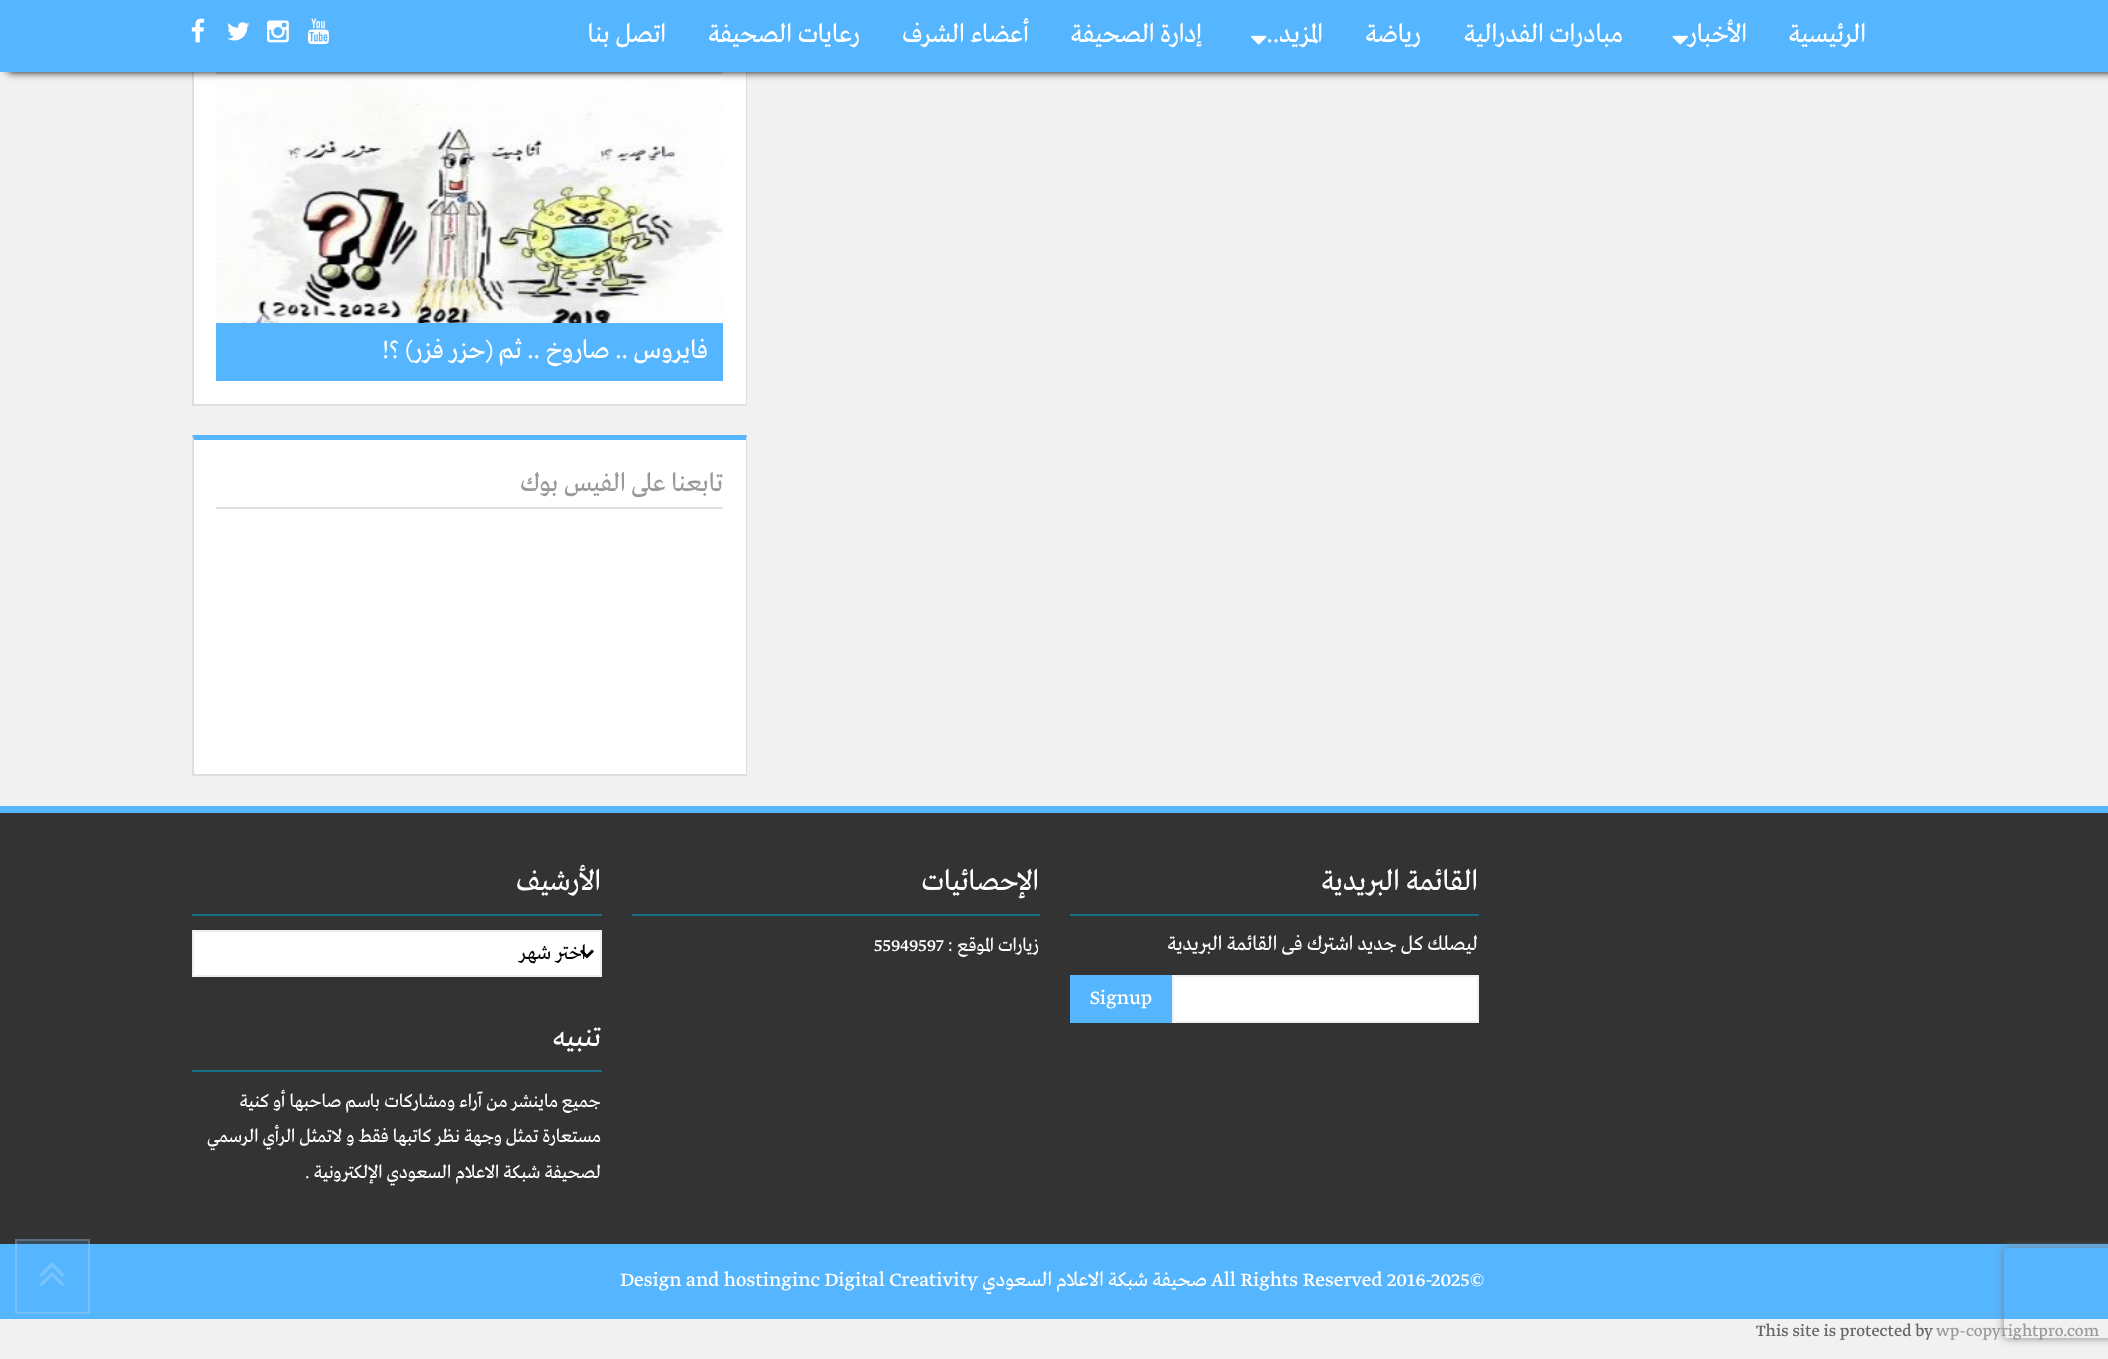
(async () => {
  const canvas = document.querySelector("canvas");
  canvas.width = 2108;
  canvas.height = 1359;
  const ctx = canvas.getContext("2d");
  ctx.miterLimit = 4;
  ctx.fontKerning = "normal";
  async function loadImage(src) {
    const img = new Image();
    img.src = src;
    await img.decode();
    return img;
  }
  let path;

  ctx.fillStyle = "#f1f1f1";
  ctx.fillRect(0, 0, 2108, 1359);
  ctx.fillStyle = "#ffffff";
  ctx.fillRect(194, 72, 552, 332);
  ctx.fillStyle = "#dfdfdf";
  path = new Path2D("M747 0V405L746 404V4Z");
  ctx.fill(path);
  ctx.fillRect(192, 404, 555, 2);
  path = new Path2D("M192 405V0L194 4V404Z");
  ctx.fill(path);
  ctx.fillRect(216, 72, 507, 2);
  ctx.drawImage(await loadImage("img/7.png"), 216, 81, 507, 242);
  ctx.fillStyle = "#000000";
  ctx.filter = "blur(4px)";
  ctx.beginPath();
  ctx.rect(8, 0, 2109, 72);
  ctx.fill();
  ctx.filter = "none";
  ctx.fillStyle = "#55b5ff";
  ctx.fillRect(0, 0, 2108, 72);
  ctx.drawImage(await loadImage("img/1.png"), 1672, 35, 16, 10);
  ctx.drawImage(await loadImage("img/2.png"), 1251, 35, 16, 10);
  ctx.drawImage(await loadImage("img/3.png"), 307, 18, 22, 27);
  ctx.drawImage(await loadImage("img/4.png"), 267, 20, 22, 23);
  ctx.drawImage(await loadImage("img/5.png"), 227, 22, 23, 19);
  ctx.drawImage(await loadImage("img/6.png"), 191, 18, 14, 25);
  ctx.fillRect(216, 323, 507, 58);
  ctx.fillStyle = "#ffffff";
  ctx.fillRect(194, 440, 552, 334);
  ctx.fillStyle = "#55b5ff";
  path = new Path2D("M192 435H747L746 440H194Z");
  ctx.fill(path);
  ctx.fillStyle = "#dfdfdf";
  path = new Path2D("M747 435V776L746 774V440Z");
  ctx.fill(path);
  ctx.fillRect(192, 774, 555, 2);
  path = new Path2D("M192 776V435L194 440V774Z");
  ctx.fill(path);
  for (const [x, y, w, h, color] of [
    [216, 507, 507, 2, "#dfdfdf"],
    [0, 813, 2108, 431, "#333333"],
    [15, 1239, 75, 5, "#3a4d5c"],
    [0, 806, 2108, 7, "#55b5ff"],
    [1070, 914, 409, 2, "#1a6d87"],
  ]) {
    ctx.fillStyle = color;
    ctx.fillRect(x, y, w, h);
  }
  ctx.fillStyle = "#ffffff";
  ctx.beginPath();
  ctx.rect(1173, 976, 305, 46);
  ctx.fill();
  ctx.strokeStyle = "#f1f1f1";
  ctx.lineWidth = 2;
  ctx.stroke();
  for (const [x, y, w, h, color] of [
    [1070, 975, 102, 48, "#55b5ff"],
    [632, 914, 408, 2, "#1a6d87"],
    [192, 914, 410, 2, "#1a6d87"],
  ]) {
    ctx.fillStyle = color;
    ctx.fillRect(x, y, w, h);
  }
  ctx.fillStyle = "#ffffff";
  ctx.beginPath();
  ctx.rect(193, 931, 408, 45);
  ctx.fill();
  ctx.strokeStyle = "#eeeeee";
  ctx.stroke();
  path = new Path2D("M581 950.5L587 956.5L593 950.5");
  ctx.strokeStyle = "#000000";
  ctx.lineWidth = 3;
  ctx.stroke(path);
  ctx.fillStyle = "#1a6d87";
  ctx.fillRect(192, 1070, 410, 2);
  ctx.fillStyle = "#55b5ff";
  ctx.fillRect(0, 1244, 2108, 75);
  ctx.save();
  path = new Path2D("M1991 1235H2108V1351H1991ZM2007 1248H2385C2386.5 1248 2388 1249.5 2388 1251V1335C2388 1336.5 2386.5 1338 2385 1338H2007C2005.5 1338 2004 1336.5 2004 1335V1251C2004 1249.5 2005.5 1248 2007 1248Z");
  ctx.clip(path, "evenodd");
  ctx.fillStyle = "#808080";
  ctx.filter = "blur(4px)";
  ctx.beginPath();
  ctx.roundRect(2004, 1248, 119, 90, 3);
  ctx.fill();
  ctx.filter = "none";
  ctx.restore();
  ctx.strokeStyle = "rgba(241, 241, 241, 0.2)";
  ctx.lineWidth = 2;
  ctx.strokeRect(16, 1240, 73, 73);
  ctx.drawImage(await loadImage("img/8.png"), 39, 1262, 26, 25);
  ctx.direction = "rtl";
  ctx.font = "27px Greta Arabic";
  ctx.fillStyle = "#ffffff";
  for (const [text, x, y] of [
    ["الرئيسية", 1866, 42],
    ["الأخبار", 1747, 42],
    ["مبادرات الفدرالية", 1623, 42],
    ["رياضة", 1421, 42],
    ["المزيد..", 1323, 42],
    ["إدارة الصحيفة", 1202, 42],
    ["أعضاء الشرف", 1029, 42],
    ["رعايات الصحيفة", 860, 42],
    ["اتصل بنا", 666, 42],
    ["فايروس .. صاروخ .. ثم (حزر فزر) ؟!", 708, 358],
  ]) {
    ctx.fillText(text, x, y);
  }
  ctx.fillStyle = "#999999";
  ctx.fillText("تابعنا على الفيس بوك", 723, 491);
  ctx.font = "30px Greta Arabic";
  ctx.fillStyle = "#ffffff";
  ctx.fillText("القائمة البريدية", 1478, 890);
  ctx.font = "21px Greta Arabic";
  ctx.fillText("ليصلك كل جديد اشترك فى القائمة البريدية", 1478, 950);
  ctx.direction = "ltr";
  ctx.fillText("Signup", 1090, 1004);
  ctx.direction = "rtl";
  ctx.font = "30px Greta Arabic";
  ctx.fillText("الإحصائيات", 1039, 890);
  ctx.font = "19.5px Greta Arabic";
  ctx.fillText("زيارات الموقع :", 1039, 951);
  ctx.direction = "ltr";
  ctx.fillText("55949597", 874, 951);
  ctx.direction = "rtl";
  ctx.font = "30px Greta Arabic";
  ctx.fillText("الأرشيف", 601, 890);
  ctx.font = "21px Greta Arabic";
  ctx.fillStyle = "#000000";
  ctx.fillText("اختر شهر", 586, 959);
  ctx.font = "30px Greta Arabic";
  ctx.fillStyle = "#ffffff";
  ctx.fillText("تنبيه", 601, 1046);
  ctx.font = "19.5px Greta Arabic";
  for (const [text, x, y] of [
    ["جميع ماينشر من آراء ومشاركات باسم صاحبها أو كنية", 601, 1107],
    ["مستعارة تمثل وجهة نظر كاتبها فقط و لاتمثل الرأي الرسمي", 601, 1142],
    ["لصحيفة شبكة الاعلام السعودي الإلكترونية .", 601, 1178],
  ]) {
    ctx.fillText(text, x, y);
  }
  ctx.direction = "ltr";
  ctx.font = "21px Greta Arabic";
  ctx.fillText("All Rights Reserved 2016-2025©", 1211, 1286);
  ctx.direction = "rtl";
  ctx.fillText("صحيفة شبكة الاعلام السعودي", 1207, 1286);
  ctx.direction = "ltr";
  ctx.fillText("Design and hostinginc Digital Creativity", 620, 1286);
  ctx.font = "17.75px Greta Arabic";
  ctx.fillStyle = "#999999";
  ctx.fillText("wp-copyrightpro.com", 1936, 1336);
  ctx.fillStyle = "#666666";
  ctx.fillText("This site is protected by", 1756, 1336);
})();
